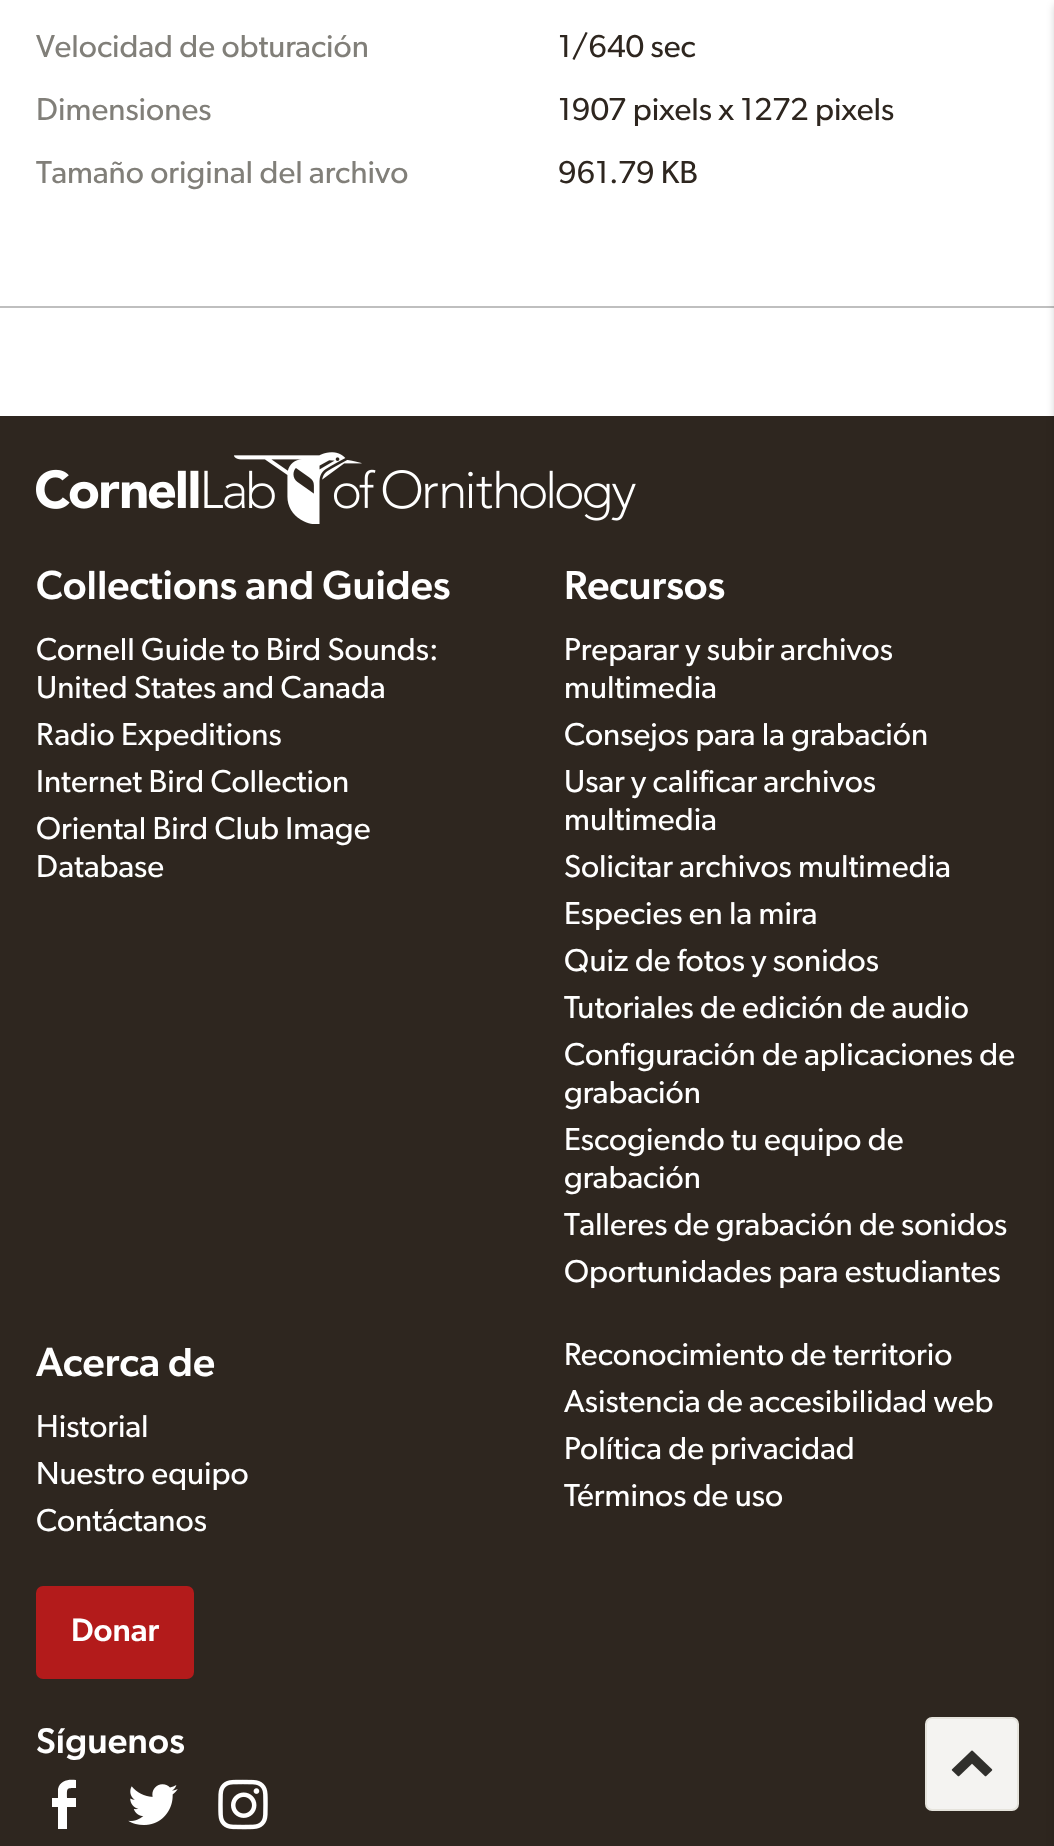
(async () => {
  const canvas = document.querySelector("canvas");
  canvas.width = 1054;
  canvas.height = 1846;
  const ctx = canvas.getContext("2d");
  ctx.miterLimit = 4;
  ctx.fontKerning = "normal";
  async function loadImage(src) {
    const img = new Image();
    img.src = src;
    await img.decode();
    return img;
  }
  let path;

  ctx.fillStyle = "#ffffff";
  ctx.fillRect(0, 0, 1054, 1846);
  ctx.fillStyle = "#bfbfbf";
  ctx.fillRect(0, 306, 1054, 2);
  ctx.fillStyle = "#2e261f";
  ctx.fillRect(0, 416, 1054, 1430);
  ctx.fillStyle = "rgba(0, 0, 0, 0.2)";
  ctx.filter = "blur(4.5px)";
  ctx.beginPath();
  ctx.rect(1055, 5, 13, 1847);
  ctx.fill();
  ctx.filter = "none";
  ctx.drawImage(await loadImage("img/1.png"), 36, 452, 600, 72);
  ctx.fillStyle = "#b31b1b";
  ctx.beginPath();
  ctx.roundRect(36, 1586, 158, 93, 7);
  ctx.fill();
  ctx.fillStyle = "#ffffff";
  path = new Path2D("M58 1829V1807H52V1798H58V1789C60 1780 69 1779 76 1780V1788C66 1788 67 1788 67 1798H76V1807H67V1829Z");
  ctx.fill(path, "evenodd");
  ctx.drawImage(await loadImage("img/2.png"), 128, 1784, 50, 41);
  ctx.drawImage(await loadImage("img/3.png"), 218, 1779, 50, 51);
  ctx.fillStyle = "#f4f3f1";
  ctx.beginPath();
  ctx.roundRect(926, 1718, 92, 92, 6);
  ctx.fill();
  ctx.strokeStyle = "#e5e3dc";
  ctx.lineWidth = 2;
  ctx.stroke();
  ctx.drawImage(await loadImage("img/4.png"), 951, 1750, 42, 27);
  ctx.font = "31.75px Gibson";
  ctx.fillStyle = "#817f79";
  ctx.fillText("Velocidad de obturación", 36, 57);
  ctx.fillStyle = "#2e261f";
  ctx.fillText("1/640 sec", 558, 57);
  ctx.fillStyle = "#817f79";
  ctx.fillText("Dimensiones", 36, 120);
  ctx.fillStyle = "#2e261f";
  ctx.fillText("1907 pixels x 1272 pixels", 558, 120);
  ctx.fillStyle = "#817f79";
  ctx.fillText("Tamaño original del archivo", 36, 183);
  ctx.fillStyle = "#2e261f";
  ctx.fillText("961.79 KB", 558, 183);
  ctx.font = "500 40.75px Gibson";
  ctx.fillStyle = "#ffffff";
  ctx.fillText("Collections and Guides", 36, 599);
  ctx.font = "31.75px Gibson";
  for (const [text, x, y] of [
    ["Cornell Guide to Bird Sounds:", 36, 660],
    ["United States and Canada", 36, 698],
    ["Radio Expeditions", 36, 745],
    ["Internet Bird Collection", 36, 792],
    ["Oriental Bird Club Image", 36, 839],
    ["Database", 36, 877],
  ]) {
    ctx.fillText(text, x, y);
  }
  ctx.font = "500 40.75px Gibson";
  ctx.fillText("Recursos", 564, 599);
  ctx.font = "31.75px Gibson";
  for (const [text, x, y] of [
    ["Preparar y subir archivos", 564, 660],
    ["multimedia", 564, 698],
    ["Consejos para la grabación", 564, 745],
    ["Usar y calificar archivos", 564, 792],
    ["multimedia", 564, 830],
    ["Solicitar archivos multimedia", 564, 877],
    ["Especies en la mira", 564, 924],
    ["Quiz de fotos y sonidos", 564, 971],
    ["Tutoriales de edición de audio", 564, 1018],
    ["Configuración de aplicaciones de", 564, 1065],
    ["grabación", 564, 1103],
    ["Escogiendo tu equipo de", 564, 1150],
    ["grabación", 564, 1188],
    ["Talleres de grabación de sonidos", 564, 1235],
    ["Oportunidades para estudiantes", 564, 1282],
  ]) {
    ctx.fillText(text, x, y);
  }
  ctx.font = "500 40.75px Gibson";
  ctx.fillText("Acerca de", 36, 1376);
  ctx.font = "31.75px Gibson";
  for (const [text, x, y] of [
    ["Historial", 36, 1437],
    ["Nuestro equipo", 36, 1484],
    ["Contáctanos", 36, 1531],
    ["Reconocimiento de territorio", 564, 1365],
    ["Asistencia de accesibilidad web", 564, 1412],
    ["Política de privacidad", 564, 1459],
    ["Términos de uso", 564, 1506],
  ]) {
    ctx.fillText(text, x, y);
  }
  ctx.font = "500 32.5px Gibson";
  ctx.fillText("Donar", 71, 1641);
  ctx.letterSpacing = "0.25px";
  ctx.font = "500 36px Gibson";
  ctx.fillText("Síguenos", 36, 1753);
})();
